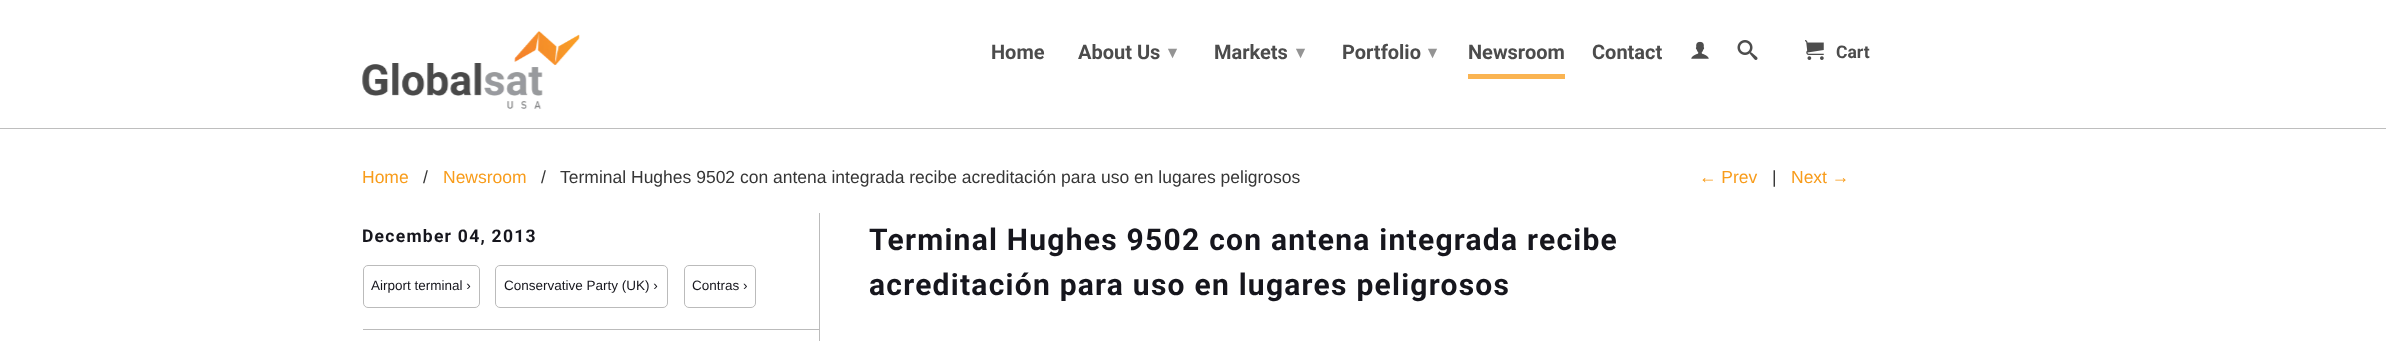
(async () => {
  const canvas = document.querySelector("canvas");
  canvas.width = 2386;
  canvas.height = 341;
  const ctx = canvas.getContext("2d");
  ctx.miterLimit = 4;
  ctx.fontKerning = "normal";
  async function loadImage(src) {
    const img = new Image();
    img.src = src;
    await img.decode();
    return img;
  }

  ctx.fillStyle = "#ffffff";
  ctx.fillRect(0, 0, 2386, 341);
  ctx.fillStyle = "#bebebe";
  ctx.fillRect(0, 128, 2386, 1);
  ctx.drawImage(await loadImage("img/1.png"), 362, 31, 218, 78);
  ctx.fillStyle = "#fab452";
  ctx.fillRect(1468, 74, 97, 5);
  ctx.drawImage(await loadImage("img/2.png"), 1691, 41, 18, 18);
  ctx.drawImage(await loadImage("img/3.png"), 1737, 40, 21, 20);
  ctx.drawImage(await loadImage("img/4.png"), 1805, 40, 19, 20);
  ctx.beginPath();
  ctx.roundRect(363.5, 265.5, 116, 42, 4.5);
  ctx.strokeStyle = "#bbbbbb";
  ctx.stroke();
  ctx.beginPath();
  ctx.roundRect(495.5, 265.5, 172, 42, 4.5);
  ctx.stroke();
  ctx.beginPath();
  ctx.roundRect(684.5, 265.5, 71, 42, 4.5);
  ctx.stroke();
  ctx.fillStyle = "#bbbbbb";
  ctx.fillRect(363, 329, 456, 1);
  ctx.fillRect(819, 213, 1, 128);
  ctx.font = "bold 20px Roboto";
  ctx.fillStyle = "#4c4c4c";
  ctx.fillText("Home", 991, 59);
  ctx.fillText("About Us", 1078, 59);
  ctx.font = "bold 17px DejaVu Sans";
  ctx.fillStyle = "#949494";
  ctx.fillText("▾", 1168, 58);
  ctx.font = "bold 20px Roboto";
  ctx.fillStyle = "#4c4c4c";
  ctx.fillText("Markets", 1214, 59);
  ctx.font = "bold 17px DejaVu Sans";
  ctx.fillStyle = "#949494";
  ctx.fillText("▾", 1296, 58);
  ctx.font = "bold 20px Roboto";
  ctx.fillStyle = "#4c4c4c";
  ctx.fillText("Portfolio", 1342, 59);
  ctx.font = "bold 17px DejaVu Sans";
  ctx.fillStyle = "#949494";
  ctx.fillText("▾", 1428, 58);
  ctx.font = "bold 20px Roboto";
  ctx.fillStyle = "#4c4c4c";
  ctx.fillText("Newsroom", 1468, 59);
  ctx.fillText("Contact", 1592, 59);
  ctx.font = "bold 17.5px Roboto";
  ctx.fillText("Cart", 1836, 58);
  ctx.font = "17.5px Liberation Sans";
  ctx.fillStyle = "#f89c1b";
  ctx.fillText("Home", 362, 183);
  ctx.fillStyle = "#363636";
  ctx.fillText("/", 423, 183);
  ctx.fillStyle = "#f89c1b";
  ctx.fillText("Newsroom", 443, 183);
  ctx.fillStyle = "#363636";
  ctx.fillText("/", 541, 183);
  ctx.fillText("Terminal Hughes 9502 con antena integrada recibe acreditación para uso en lugares peligrosos", 560, 183);
  ctx.fillStyle = "#f89c1b";
  ctx.fillText("← Prev", 1699, 183);
  ctx.fillStyle = "#363636";
  ctx.fillText("|", 1772, 183);
  ctx.fillStyle = "#f89c1b";
  ctx.fillText("Next →", 1791, 183);
  ctx.letterSpacing = "1.25px";
  ctx.font = "bold 17.5px Roboto";
  ctx.fillStyle = "#16161d";
  ctx.fillText("December 04, 2013", 362, 242);
  ctx.letterSpacing = "0px";
  ctx.font = "13.5px Liberation Sans";
  for (const [text, x, y] of [
    ["Airport terminal ›", 371, 290],
    ["Conservative Party (UK) ›", 504, 290],
    ["Contras ›", 692, 290],
  ]) {
    ctx.fillText(text, x, y);
  }
  ctx.letterSpacing = "1.25px";
  ctx.font = "bold 30px Roboto";
  ctx.fillText("Terminal Hughes 9502 con antena integrada recibe", 869, 250);
  ctx.fillText("acreditación para uso en lugares peligrosos", 869, 295);
})();
